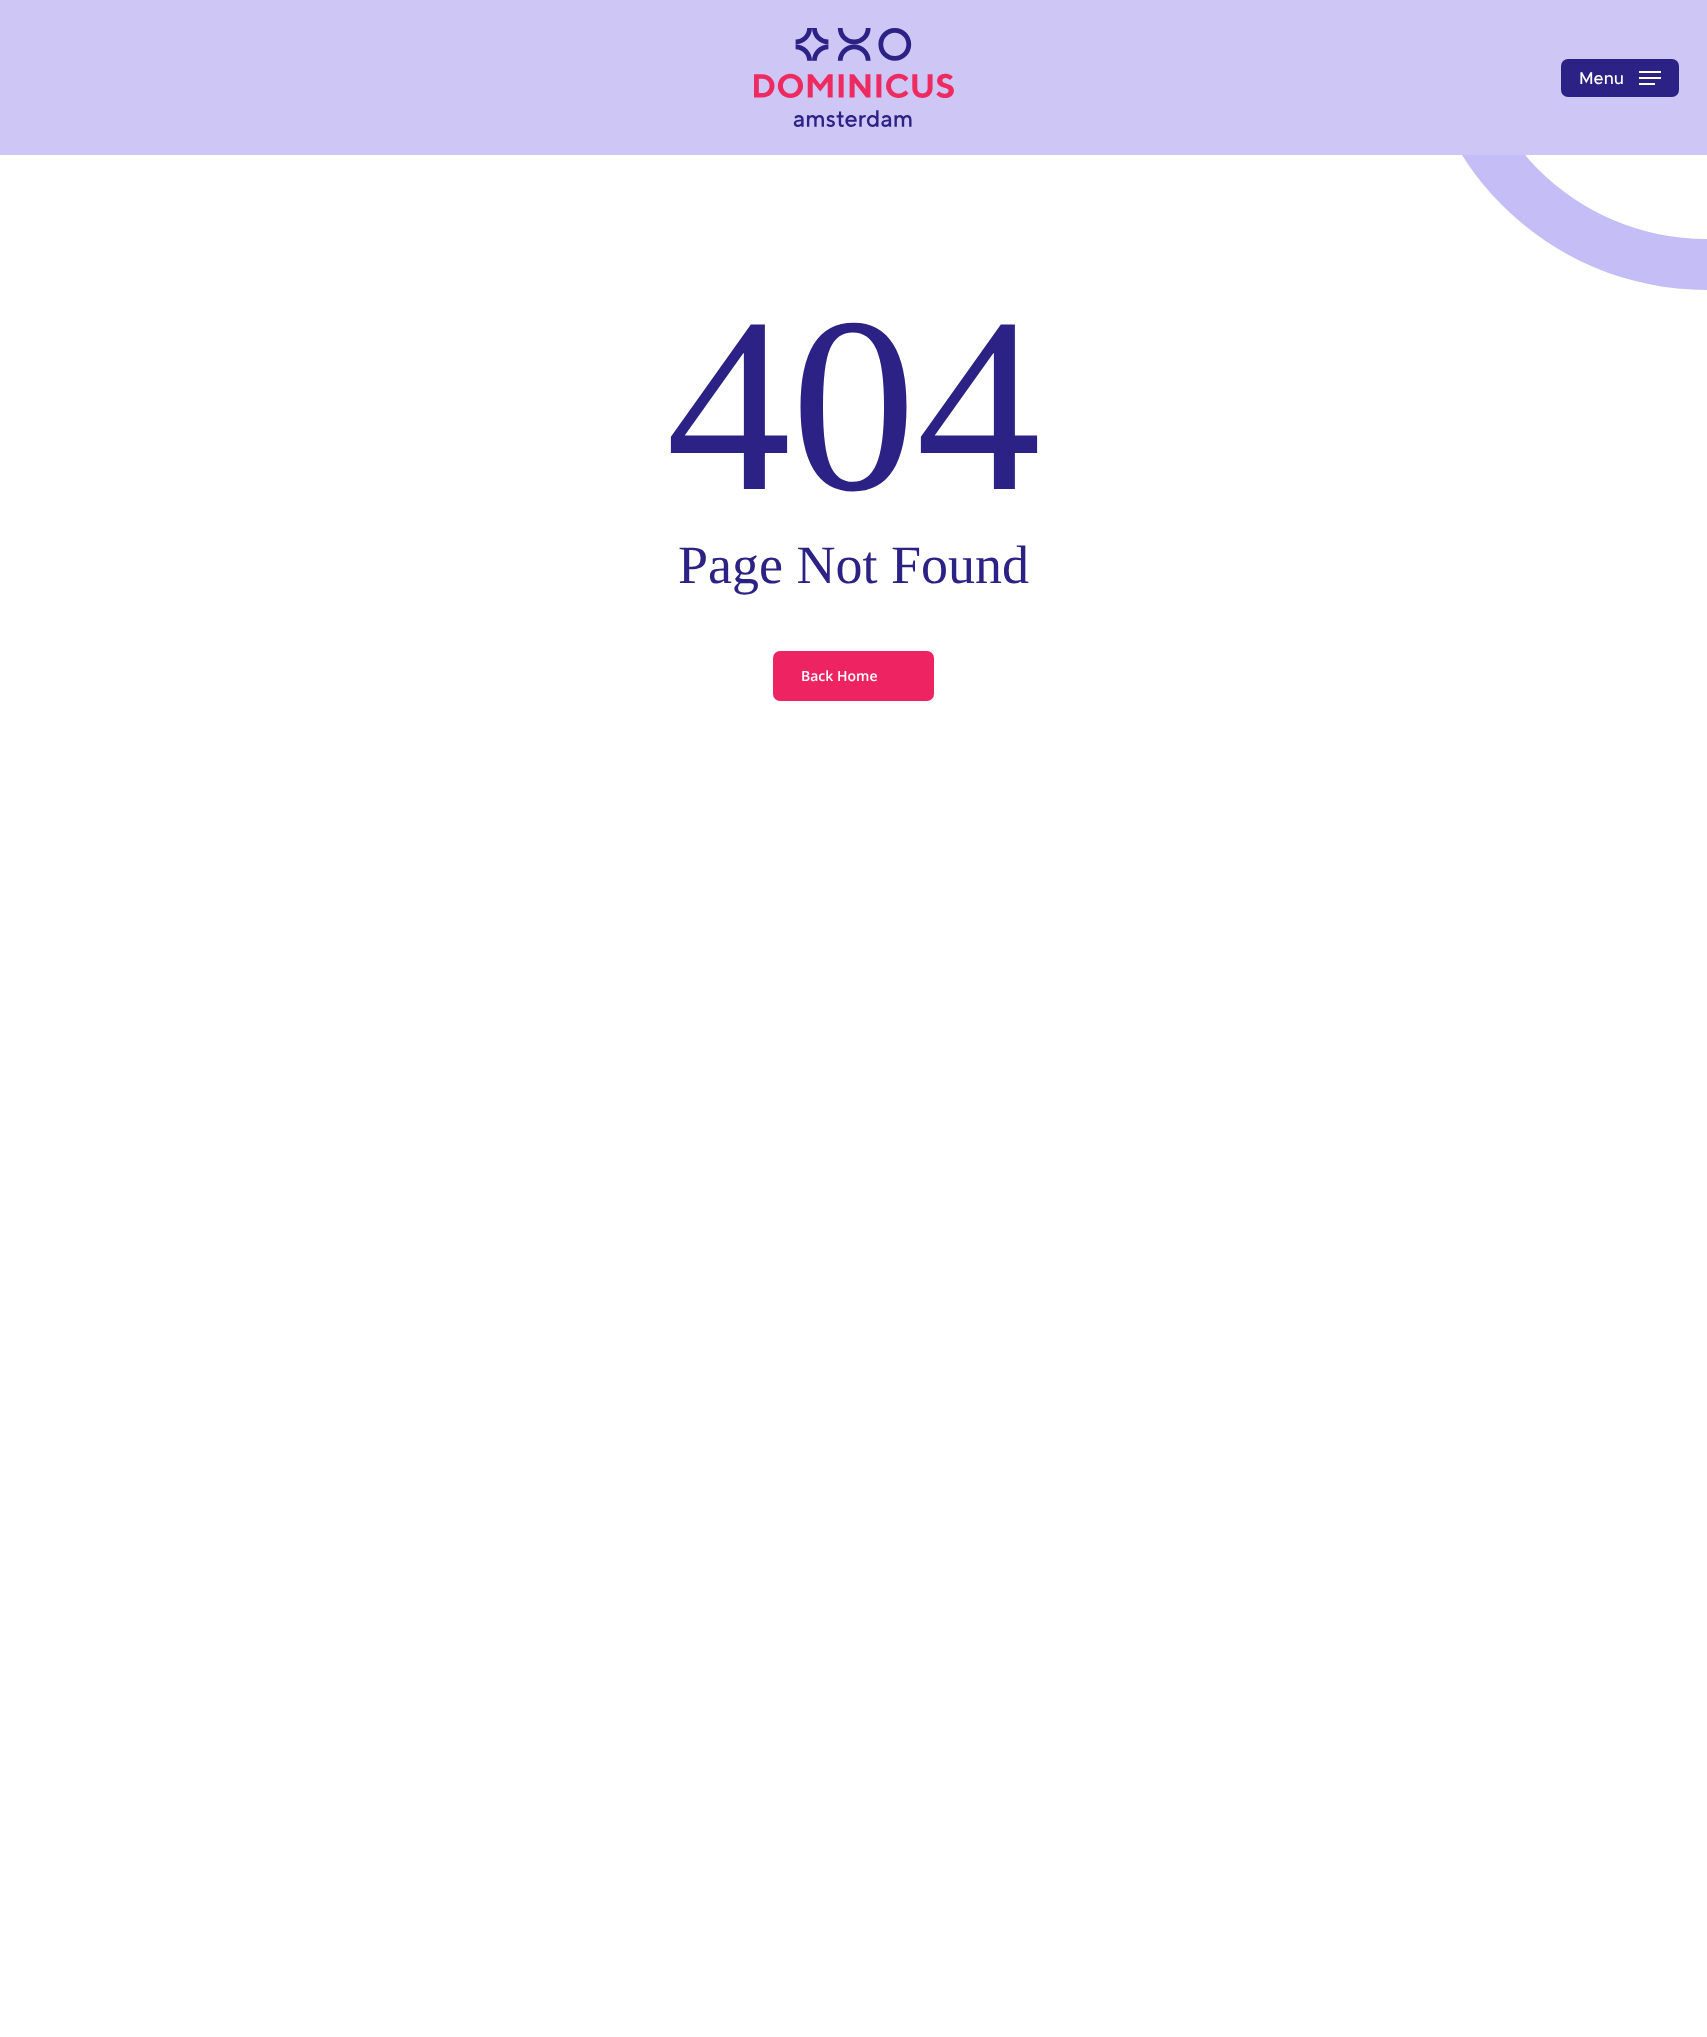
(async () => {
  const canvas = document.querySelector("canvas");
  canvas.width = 1707;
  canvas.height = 2037;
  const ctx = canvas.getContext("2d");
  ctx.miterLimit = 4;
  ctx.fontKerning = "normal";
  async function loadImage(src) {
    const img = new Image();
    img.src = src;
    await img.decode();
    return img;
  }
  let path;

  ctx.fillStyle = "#ffffff";
  ctx.fillRect(0, 0, 1707, 2037);
  ctx.fillStyle = "#c5bdf5";
  path = new Path2D("M1417 0H1707V290C1547 290 1417 160 1417 0ZM1468 0H1707V239C1575 239 1468 132 1468 0Z");
  ctx.fill(path, "evenodd");
  ctx.fillStyle = "#cec7f6";
  ctx.fillRect(0, 0, 1707, 155);
  ctx.drawImage(await loadImage("img/1.png"), 754, 28, 200, 99);
  ctx.fillStyle = "#2c2185";
  ctx.beginPath();
  ctx.roundRect(1561, 59, 118, 38, 7);
  ctx.fill();
  for (const [x, y, w, h, color] of [
    [1639, 71, 22, 2, "#ffffff"],
    [1639, 83, 16, 2, "#ffffff"],
    [1639, 77, 22, 2, "#ffffff"],
  ]) {
    ctx.fillStyle = color;
    ctx.fillRect(x, y, w, h);
  }
  ctx.fillStyle = "#ee2361";
  ctx.beginPath();
  ctx.roundRect(773, 651, 161, 50, 7);
  ctx.fill();
  ctx.font = "500 17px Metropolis";
  ctx.fillStyle = "#ffffff";
  ctx.fillText("Menu", 1579, 84);
  ctx.font = "250px Liberation Serif";
  ctx.fillStyle = "#2c2185";
  ctx.fillText("404", 666, 489);
  ctx.font = "54px Liberation Serif";
  ctx.fillText("Page Not Found", 678, 583);
  ctx.font = "600 14px Open Sans";
  ctx.fillStyle = "#ffffff";
  ctx.fillText("Back Home", 801, 681);
})();
